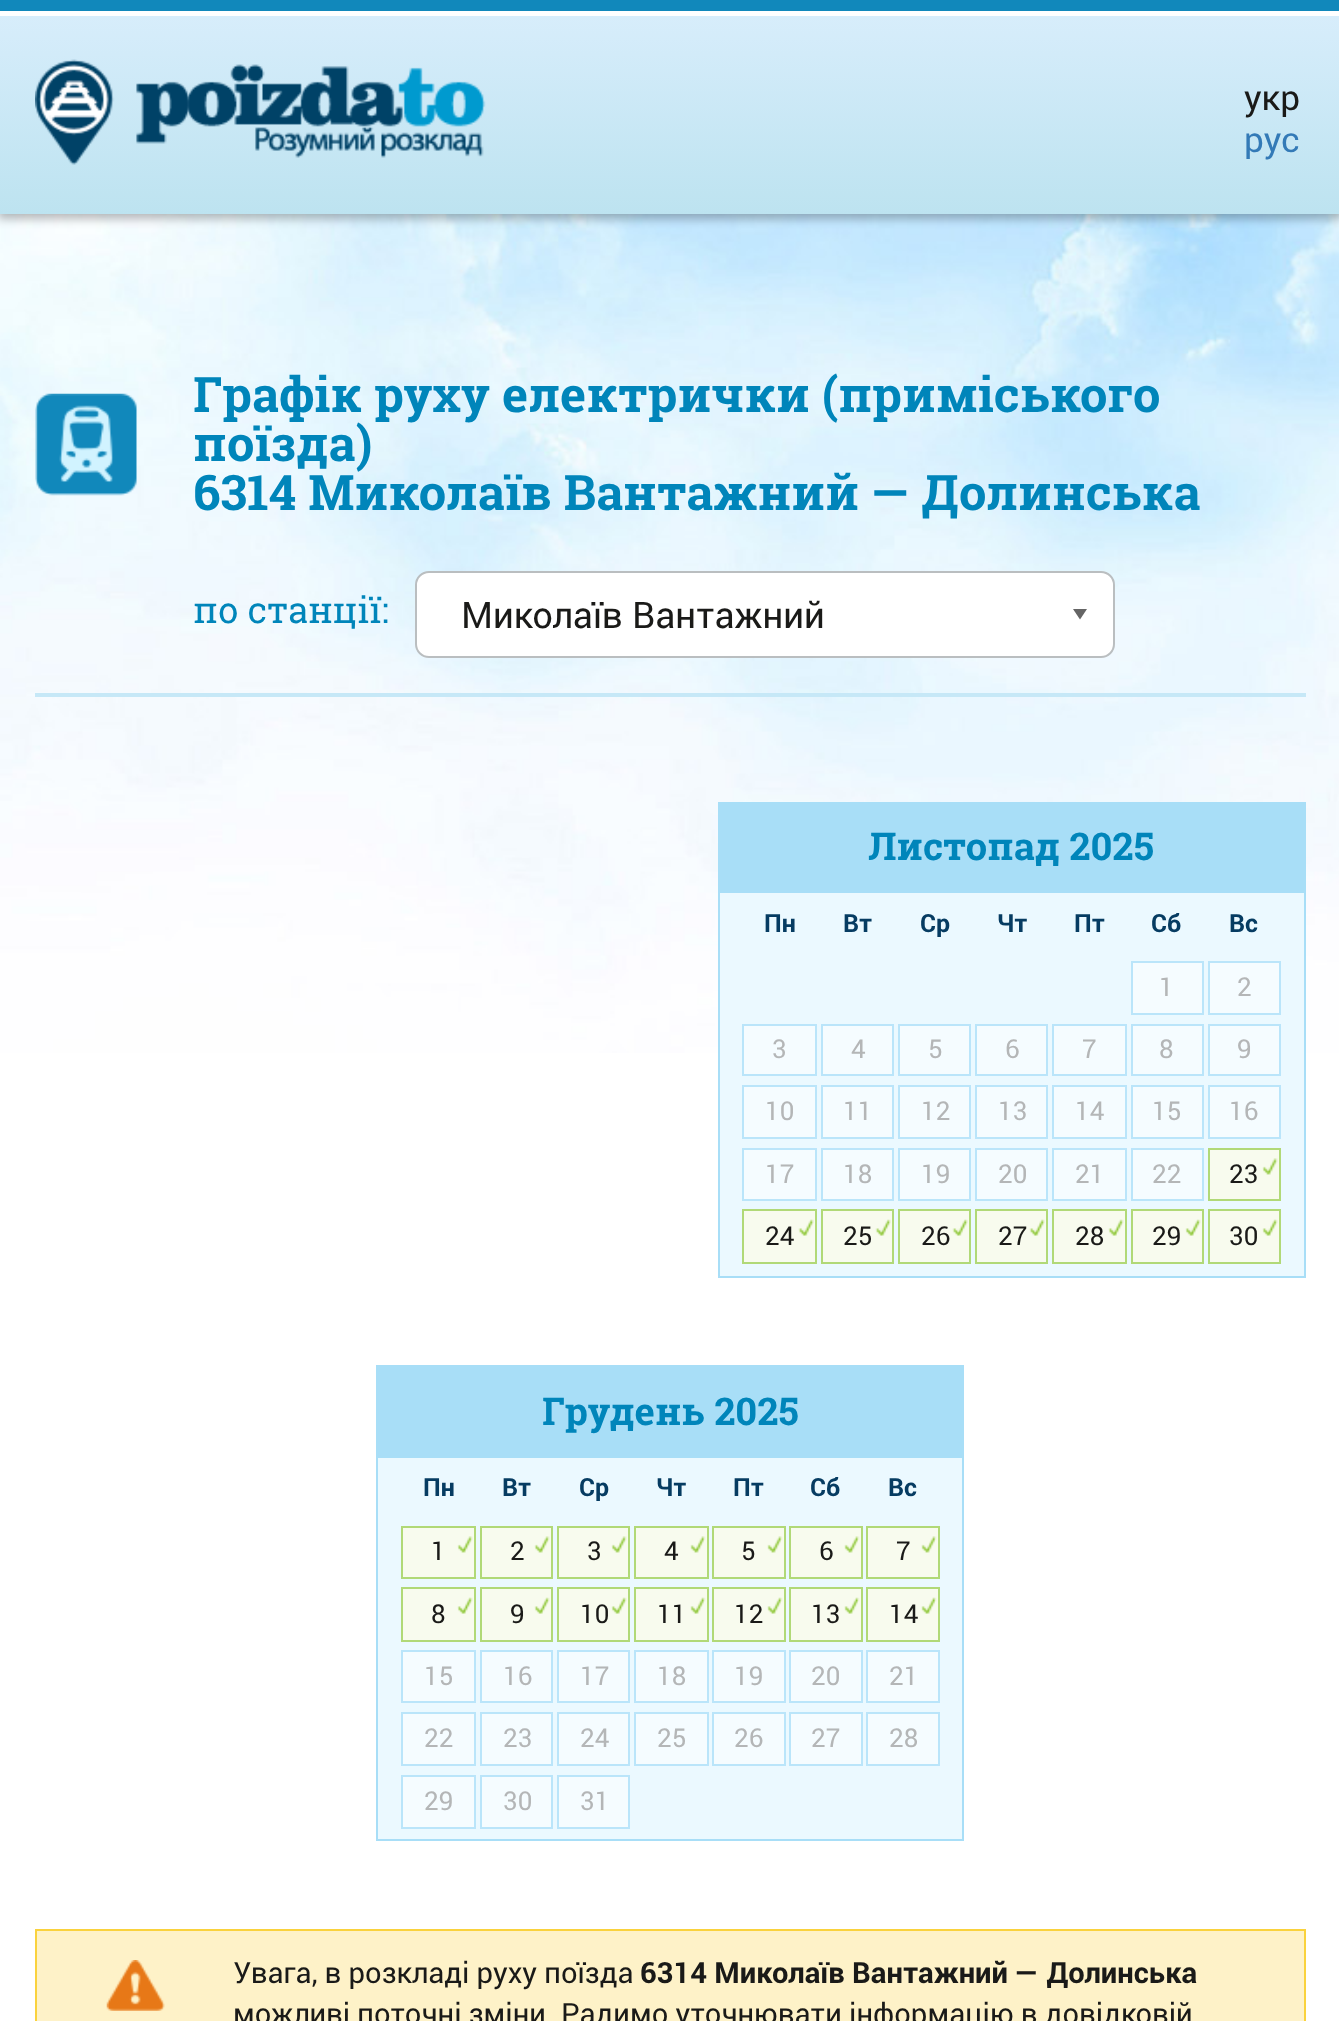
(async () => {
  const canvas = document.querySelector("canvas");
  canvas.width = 1339;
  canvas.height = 2021;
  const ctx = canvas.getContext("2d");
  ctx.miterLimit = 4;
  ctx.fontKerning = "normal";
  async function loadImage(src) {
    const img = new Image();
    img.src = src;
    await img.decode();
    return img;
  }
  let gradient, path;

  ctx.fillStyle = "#ffffff";
  ctx.fillRect(0, 0, 1339, 2021);
  ctx.fillStyle = "#1188bb";
  ctx.fillRect(0, 0, 1339, 11);
  ctx.drawImage(await loadImage("img/2.png"), 0, 214, 1339, 839);
  ctx.save();
  ctx.beginPath();
  ctx.rect(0, 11, 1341, 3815);
  ctx.clip();
  ctx.fillStyle = "rgba(0, 0, 0, 0.27)";
  ctx.filter = "blur(5px)";
  ctx.beginPath();
  ctx.rect(-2, 12, 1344, 207);
  ctx.fill();
  ctx.filter = "none";
  ctx.restore();
  gradient = ctx.createLinearGradient(670, 214, 670, 16);
  gradient.addColorStop(0, "#bde3f0");
  gradient.addColorStop(1, "#d7edfb");
  ctx.fillStyle = gradient;
  ctx.fillRect(0, 16, 1339, 198);
  ctx.fillStyle = "#ffffff";
  ctx.fillRect(0, 11, 1339, 5);
  ctx.drawImage(await loadImage("img/1.png"), 35, 59, 451, 106);
  ctx.drawImage(await loadImage("img/3.png"), 35, 393, 102, 103);
  ctx.beginPath();
  ctx.roundRect(416, 572, 698, 85, 13);
  ctx.fill();
  ctx.strokeStyle = "#babec0";
  ctx.lineWidth = 2;
  ctx.stroke();
  ctx.fillStyle = "#656565";
  path = new Path2D("M1073 609H1087L1080 619.5Z");
  ctx.fill(path);
  ctx.fillStyle = "#c6e8f7";
  ctx.fillRect(35, 693, 1271, 4);
  ctx.fillStyle = "#ebf9ff";
  ctx.fillRect(720, 893, 584, 383);
  ctx.strokeStyle = "#a8def7";
  ctx.strokeRect(719, 803, 586, 474);
  ctx.fillStyle = "#a8def7";
  ctx.fillRect(720, 804, 584, 89);
  ctx.fillStyle = "#f5fcff";
  ctx.beginPath();
  ctx.rect(1132, 962, 71, 52);
  ctx.fill();
  ctx.strokeStyle = "#bae5fa";
  ctx.stroke();
  ctx.beginPath();
  ctx.rect(1209, 962, 71, 52);
  ctx.fill();
  ctx.stroke();
  ctx.beginPath();
  ctx.rect(743, 1025, 73, 50);
  ctx.fill();
  ctx.stroke();
  ctx.beginPath();
  ctx.rect(822, 1025, 71, 50);
  ctx.fill();
  ctx.stroke();
  ctx.beginPath();
  ctx.rect(899, 1025, 71, 50);
  ctx.fill();
  ctx.stroke();
  ctx.beginPath();
  ctx.rect(976, 1025, 71, 50);
  ctx.fill();
  ctx.stroke();
  ctx.beginPath();
  ctx.rect(1053, 1025, 73, 50);
  ctx.fill();
  ctx.stroke();
  ctx.beginPath();
  ctx.rect(1132, 1025, 71, 50);
  ctx.fill();
  ctx.stroke();
  ctx.beginPath();
  ctx.rect(1209, 1025, 71, 50);
  ctx.fill();
  ctx.stroke();
  ctx.beginPath();
  ctx.rect(743, 1086, 73, 52);
  ctx.fill();
  ctx.stroke();
  ctx.beginPath();
  ctx.rect(822, 1086, 71, 52);
  ctx.fill();
  ctx.stroke();
  ctx.beginPath();
  ctx.rect(899, 1086, 71, 52);
  ctx.fill();
  ctx.stroke();
  ctx.beginPath();
  ctx.rect(976, 1086, 71, 52);
  ctx.fill();
  ctx.stroke();
  ctx.beginPath();
  ctx.rect(1053, 1086, 73, 52);
  ctx.fill();
  ctx.stroke();
  ctx.beginPath();
  ctx.rect(1132, 1086, 71, 52);
  ctx.fill();
  ctx.stroke();
  ctx.beginPath();
  ctx.rect(1209, 1086, 71, 52);
  ctx.fill();
  ctx.stroke();
  ctx.beginPath();
  ctx.rect(743, 1149, 73, 51);
  ctx.fill();
  ctx.stroke();
  ctx.beginPath();
  ctx.rect(822, 1149, 71, 51);
  ctx.fill();
  ctx.stroke();
  ctx.beginPath();
  ctx.rect(899, 1149, 71, 51);
  ctx.fill();
  ctx.stroke();
  ctx.beginPath();
  ctx.rect(976, 1149, 71, 51);
  ctx.fill();
  ctx.stroke();
  ctx.beginPath();
  ctx.rect(1053, 1149, 73, 51);
  ctx.fill();
  ctx.stroke();
  ctx.beginPath();
  ctx.rect(1132, 1149, 71, 51);
  ctx.fill();
  ctx.stroke();
  ctx.fillStyle = "#f8fbee";
  ctx.fillRect(1210, 1150, 69, 49);
  ctx.drawImage(await loadImage("img/4.png"), 1262, 1158, 16, 17);
  ctx.strokeStyle = "#b1d977";
  ctx.strokeRect(1209, 1149, 71, 51);
  ctx.fillRect(744, 1211, 71, 51);
  ctx.drawImage(await loadImage("img/5.png"), 798, 1219, 16, 17);
  ctx.strokeRect(743, 1210, 73, 53);
  ctx.fillRect(823, 1211, 69, 51);
  ctx.drawImage(await loadImage("img/5.png"), 875, 1219, 16, 17);
  ctx.strokeRect(822, 1210, 71, 53);
  ctx.fillRect(900, 1211, 69, 51);
  ctx.drawImage(await loadImage("img/5.png"), 952, 1219, 16, 17);
  ctx.strokeRect(899, 1210, 71, 53);
  ctx.fillRect(977, 1211, 69, 51);
  ctx.drawImage(await loadImage("img/6.png"), 1029, 1219, 16, 17);
  ctx.strokeRect(976, 1210, 71, 53);
  ctx.fillRect(1054, 1211, 71, 51);
  ctx.drawImage(await loadImage("img/7.png"), 1108, 1219, 16, 17);
  ctx.strokeRect(1053, 1210, 73, 53);
  ctx.fillRect(1133, 1211, 69, 51);
  ctx.drawImage(await loadImage("img/8.png"), 1185, 1219, 16, 17);
  ctx.strokeRect(1132, 1210, 71, 53);
  ctx.fillRect(1210, 1211, 69, 51);
  ctx.drawImage(await loadImage("img/8.png"), 1262, 1219, 16, 17);
  ctx.strokeRect(1209, 1210, 71, 53);
  ctx.fillStyle = "#ebf9ff";
  ctx.fillRect(378, 1458, 584, 381);
  ctx.strokeStyle = "#a8def7";
  ctx.strokeRect(377, 1366, 586, 474);
  ctx.fillStyle = "#a8def7";
  ctx.fillRect(378, 1367, 584, 91);
  ctx.fillStyle = "#f8fbee";
  ctx.fillRect(403, 1528, 71, 49);
  ctx.drawImage(await loadImage("img/4.png"), 457, 1536, 16, 17);
  ctx.strokeStyle = "#b1d977";
  ctx.strokeRect(402, 1527, 73, 51);
  ctx.fillRect(482, 1528, 69, 49);
  ctx.drawImage(await loadImage("img/9.png"), 534, 1536, 16, 17);
  ctx.strokeRect(481, 1527, 71, 51);
  ctx.fillRect(559, 1528, 69, 49);
  ctx.drawImage(await loadImage("img/4.png"), 611, 1536, 16, 17);
  ctx.strokeRect(558, 1527, 71, 51);
  ctx.fillRect(636, 1528, 71, 49);
  ctx.drawImage(await loadImage("img/10.png"), 690, 1536, 16, 17);
  ctx.strokeRect(635, 1527, 73, 51);
  ctx.fillRect(714, 1528, 70, 49);
  ctx.drawImage(await loadImage("img/10.png"), 767, 1536, 16, 17);
  ctx.strokeRect(713, 1527, 72, 51);
  ctx.fillRect(791, 1528, 70, 49);
  ctx.drawImage(await loadImage("img/10.png"), 844, 1536, 16, 17);
  ctx.strokeRect(790, 1527, 72, 51);
  ctx.fillRect(868, 1528, 70, 49);
  ctx.drawImage(await loadImage("img/11.png"), 921, 1536, 16, 17);
  ctx.strokeRect(867, 1527, 72, 51);
  ctx.fillRect(403, 1589, 71, 51);
  ctx.drawImage(await loadImage("img/8.png"), 457, 1597, 16, 17);
  ctx.strokeRect(402, 1588, 73, 53);
  ctx.fillRect(482, 1589, 69, 51);
  ctx.drawImage(await loadImage("img/7.png"), 534, 1597, 16, 17);
  ctx.strokeRect(481, 1588, 71, 53);
  ctx.fillRect(559, 1589, 69, 51);
  ctx.drawImage(await loadImage("img/8.png"), 611, 1597, 16, 17);
  ctx.strokeRect(558, 1588, 71, 53);
  ctx.fillRect(636, 1589, 71, 51);
  ctx.drawImage(await loadImage("img/12.png"), 690, 1597, 16, 17);
  ctx.strokeRect(635, 1588, 73, 53);
  ctx.fillRect(714, 1589, 70, 51);
  ctx.drawImage(await loadImage("img/12.png"), 767, 1597, 16, 17);
  ctx.strokeRect(713, 1588, 72, 53);
  ctx.fillRect(791, 1589, 70, 51);
  ctx.drawImage(await loadImage("img/12.png"), 844, 1597, 16, 17);
  ctx.strokeRect(790, 1588, 72, 53);
  ctx.fillRect(868, 1589, 70, 51);
  ctx.drawImage(await loadImage("img/13.png"), 921, 1597, 16, 17);
  ctx.strokeRect(867, 1588, 72, 53);
  ctx.fillStyle = "#f5fcff";
  ctx.beginPath();
  ctx.rect(402, 1651, 73, 51);
  ctx.fill();
  ctx.strokeStyle = "#bae5fa";
  ctx.stroke();
  ctx.beginPath();
  ctx.rect(481, 1651, 71, 51);
  ctx.fill();
  ctx.stroke();
  ctx.beginPath();
  ctx.rect(558, 1651, 71, 51);
  ctx.fill();
  ctx.stroke();
  ctx.beginPath();
  ctx.rect(635, 1651, 73, 51);
  ctx.fill();
  ctx.stroke();
  ctx.beginPath();
  ctx.rect(713, 1651, 72, 51);
  ctx.fill();
  ctx.stroke();
  ctx.beginPath();
  ctx.rect(790, 1651, 72, 51);
  ctx.fill();
  ctx.stroke();
  ctx.beginPath();
  ctx.rect(867, 1651, 72, 51);
  ctx.fill();
  ctx.stroke();
  ctx.beginPath();
  ctx.rect(402, 1713, 73, 52);
  ctx.fill();
  ctx.stroke();
  ctx.beginPath();
  ctx.rect(481, 1713, 71, 52);
  ctx.fill();
  ctx.stroke();
  ctx.beginPath();
  ctx.rect(558, 1713, 71, 52);
  ctx.fill();
  ctx.stroke();
  ctx.beginPath();
  ctx.rect(635, 1713, 73, 52);
  ctx.fill();
  ctx.stroke();
  ctx.beginPath();
  ctx.rect(713, 1713, 72, 52);
  ctx.fill();
  ctx.stroke();
  ctx.beginPath();
  ctx.rect(790, 1713, 72, 52);
  ctx.fill();
  ctx.stroke();
  ctx.beginPath();
  ctx.rect(867, 1713, 72, 52);
  ctx.fill();
  ctx.stroke();
  ctx.beginPath();
  ctx.rect(402, 1776, 73, 52);
  ctx.fill();
  ctx.stroke();
  ctx.beginPath();
  ctx.rect(481, 1776, 71, 52);
  ctx.fill();
  ctx.stroke();
  ctx.beginPath();
  ctx.rect(558, 1776, 71, 52);
  ctx.fill();
  ctx.stroke();
  ctx.fillStyle = "#fef2c8";
  ctx.fillRect(37, 1931, 1267, 90);
  ctx.drawImage(await loadImage("img/14.png"), 106, 1960, 59, 51);
  ctx.strokeStyle = "#fad23d";
  ctx.strokeRect(36, 1930, 1269, 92);
  ctx.font = "35px Roboto";
  ctx.fillStyle = "#1a1a18";
  ctx.fillText("укр", 1244, 110);
  ctx.fillStyle = "#337ab7";
  ctx.fillText("рус", 1244, 152);
  ctx.font = "bold 49px Roboto Slab";
  ctx.fillStyle = "#0085ba";
  for (const [text, x, y] of [
    ["Графік руху електрички (приміського", 193, 412],
    ["поїзда)", 193, 461],
    ["6314 Миколаїв Вантажний — Долинська", 193, 510],
  ]) {
    ctx.fillText(text, x, y);
  }
  ctx.font = "36.5px Roboto Slab";
  ctx.fillText("по станції:", 193, 623);
  ctx.font = "36.5px Roboto";
  ctx.fillStyle = "#1a1a18";
  ctx.fillText("Миколаїв Вантажний", 461, 628);
  ctx.font = "bold 38.25px Roboto Slab";
  ctx.fillStyle = "#0085ba";
  ctx.fillText("Листопад 2025", 868, 860);
  ctx.font = "bold 25px Roboto";
  ctx.fillStyle = "#063c62";
  for (const [text, x, y] of [
    ["Пн", 764, 932],
    ["Вт", 843, 932],
    ["Ср", 920, 932],
    ["Чт", 997, 932],
    ["Пт", 1074, 932],
    ["Сб", 1151, 932],
    ["Вс", 1229, 932],
  ]) {
    ctx.fillText(text, x, y);
  }
  ctx.font = "26px Roboto";
  ctx.fillStyle = "#b4b6b7";
  for (const [text, x, y] of [
    ["1", 1159, 996],
    ["2", 1237, 996],
    ["3", 772, 1058],
    ["4", 851, 1058],
    ["5", 928, 1058],
    ["6", 1005, 1058],
    ["7", 1082, 1058],
    ["8", 1159, 1058],
    ["9", 1237, 1058],
    ["10", 765, 1120],
    ["11", 843, 1120],
    ["12", 921, 1120],
    ["13", 998, 1120],
    ["14", 1075, 1120],
    ["15", 1152, 1120],
    ["16", 1229, 1120],
    ["17", 765, 1183],
    ["18", 843, 1183],
    ["19", 921, 1183],
    ["20", 998, 1183],
    ["21", 1075, 1183],
    ["22", 1152, 1183],
  ]) {
    ctx.fillText(text, x, y);
  }
  ctx.fillStyle = "#1a1a18";
  for (const [text, x, y] of [
    ["23", 1229, 1183],
    ["24", 765, 1245],
    ["25", 843, 1245],
    ["26", 921, 1245],
    ["27", 998, 1245],
    ["28", 1075, 1245],
    ["29", 1152, 1245],
    ["30", 1229, 1245],
  ]) {
    ctx.fillText(text, x, y);
  }
  ctx.font = "bold 38.25px Roboto Slab";
  ctx.fillStyle = "#0085ba";
  ctx.fillText("Грудень 2025", 542, 1425);
  ctx.font = "bold 25px Roboto";
  ctx.fillStyle = "#063c62";
  for (const [text, x, y] of [
    ["Пн", 423, 1496],
    ["Вт", 502, 1496],
    ["Ср", 579, 1496],
    ["Чт", 656, 1496],
    ["Пт", 733, 1496],
    ["Сб", 810, 1496],
    ["Вс", 888, 1496],
  ]) {
    ctx.fillText(text, x, y);
  }
  ctx.font = "26px Roboto";
  ctx.fillStyle = "#1a1a18";
  for (const [text, x, y] of [
    ["1", 431, 1560],
    ["2", 510, 1560],
    ["3", 587, 1560],
    ["4", 664, 1560],
    ["5", 741, 1560],
    ["6", 819, 1560],
    ["7", 896, 1560],
    ["8", 431, 1623],
    ["9", 510, 1623],
    ["10", 580, 1623],
    ["11", 657, 1623],
    ["12", 734, 1623],
    ["13", 811, 1623],
    ["14", 889, 1623],
  ]) {
    ctx.fillText(text, x, y);
  }
  ctx.fillStyle = "#b4b6b7";
  for (const [text, x, y] of [
    ["15", 424, 1685],
    ["16", 503, 1685],
    ["17", 580, 1685],
    ["18", 657, 1685],
    ["19", 734, 1685],
    ["20", 811, 1685],
    ["21", 889, 1685],
    ["22", 424, 1747],
    ["23", 503, 1747],
    ["24", 580, 1747],
    ["25", 657, 1747],
    ["26", 734, 1747],
    ["27", 811, 1747],
    ["28", 889, 1747],
    ["29", 424, 1810],
    ["30", 503, 1810],
    ["31", 580, 1810],
  ]) {
    ctx.fillText(text, x, y);
  }
  ctx.font = "29.2px Roboto";
  ctx.fillStyle = "#1a1a18";
  ctx.fillText("Увага, в розкладі руху поїзда", 233, 1983);
  ctx.font = "bold 29.2px Roboto";
  ctx.fillText("6314 Миколаїв Вантажний — Долинська", 640, 1983);
  ctx.font = "29.2px Roboto";
  ctx.fillText("можливі поточні зміни. Радимо уточнювати інформацію в довідковій", 233, 2024);
})();
